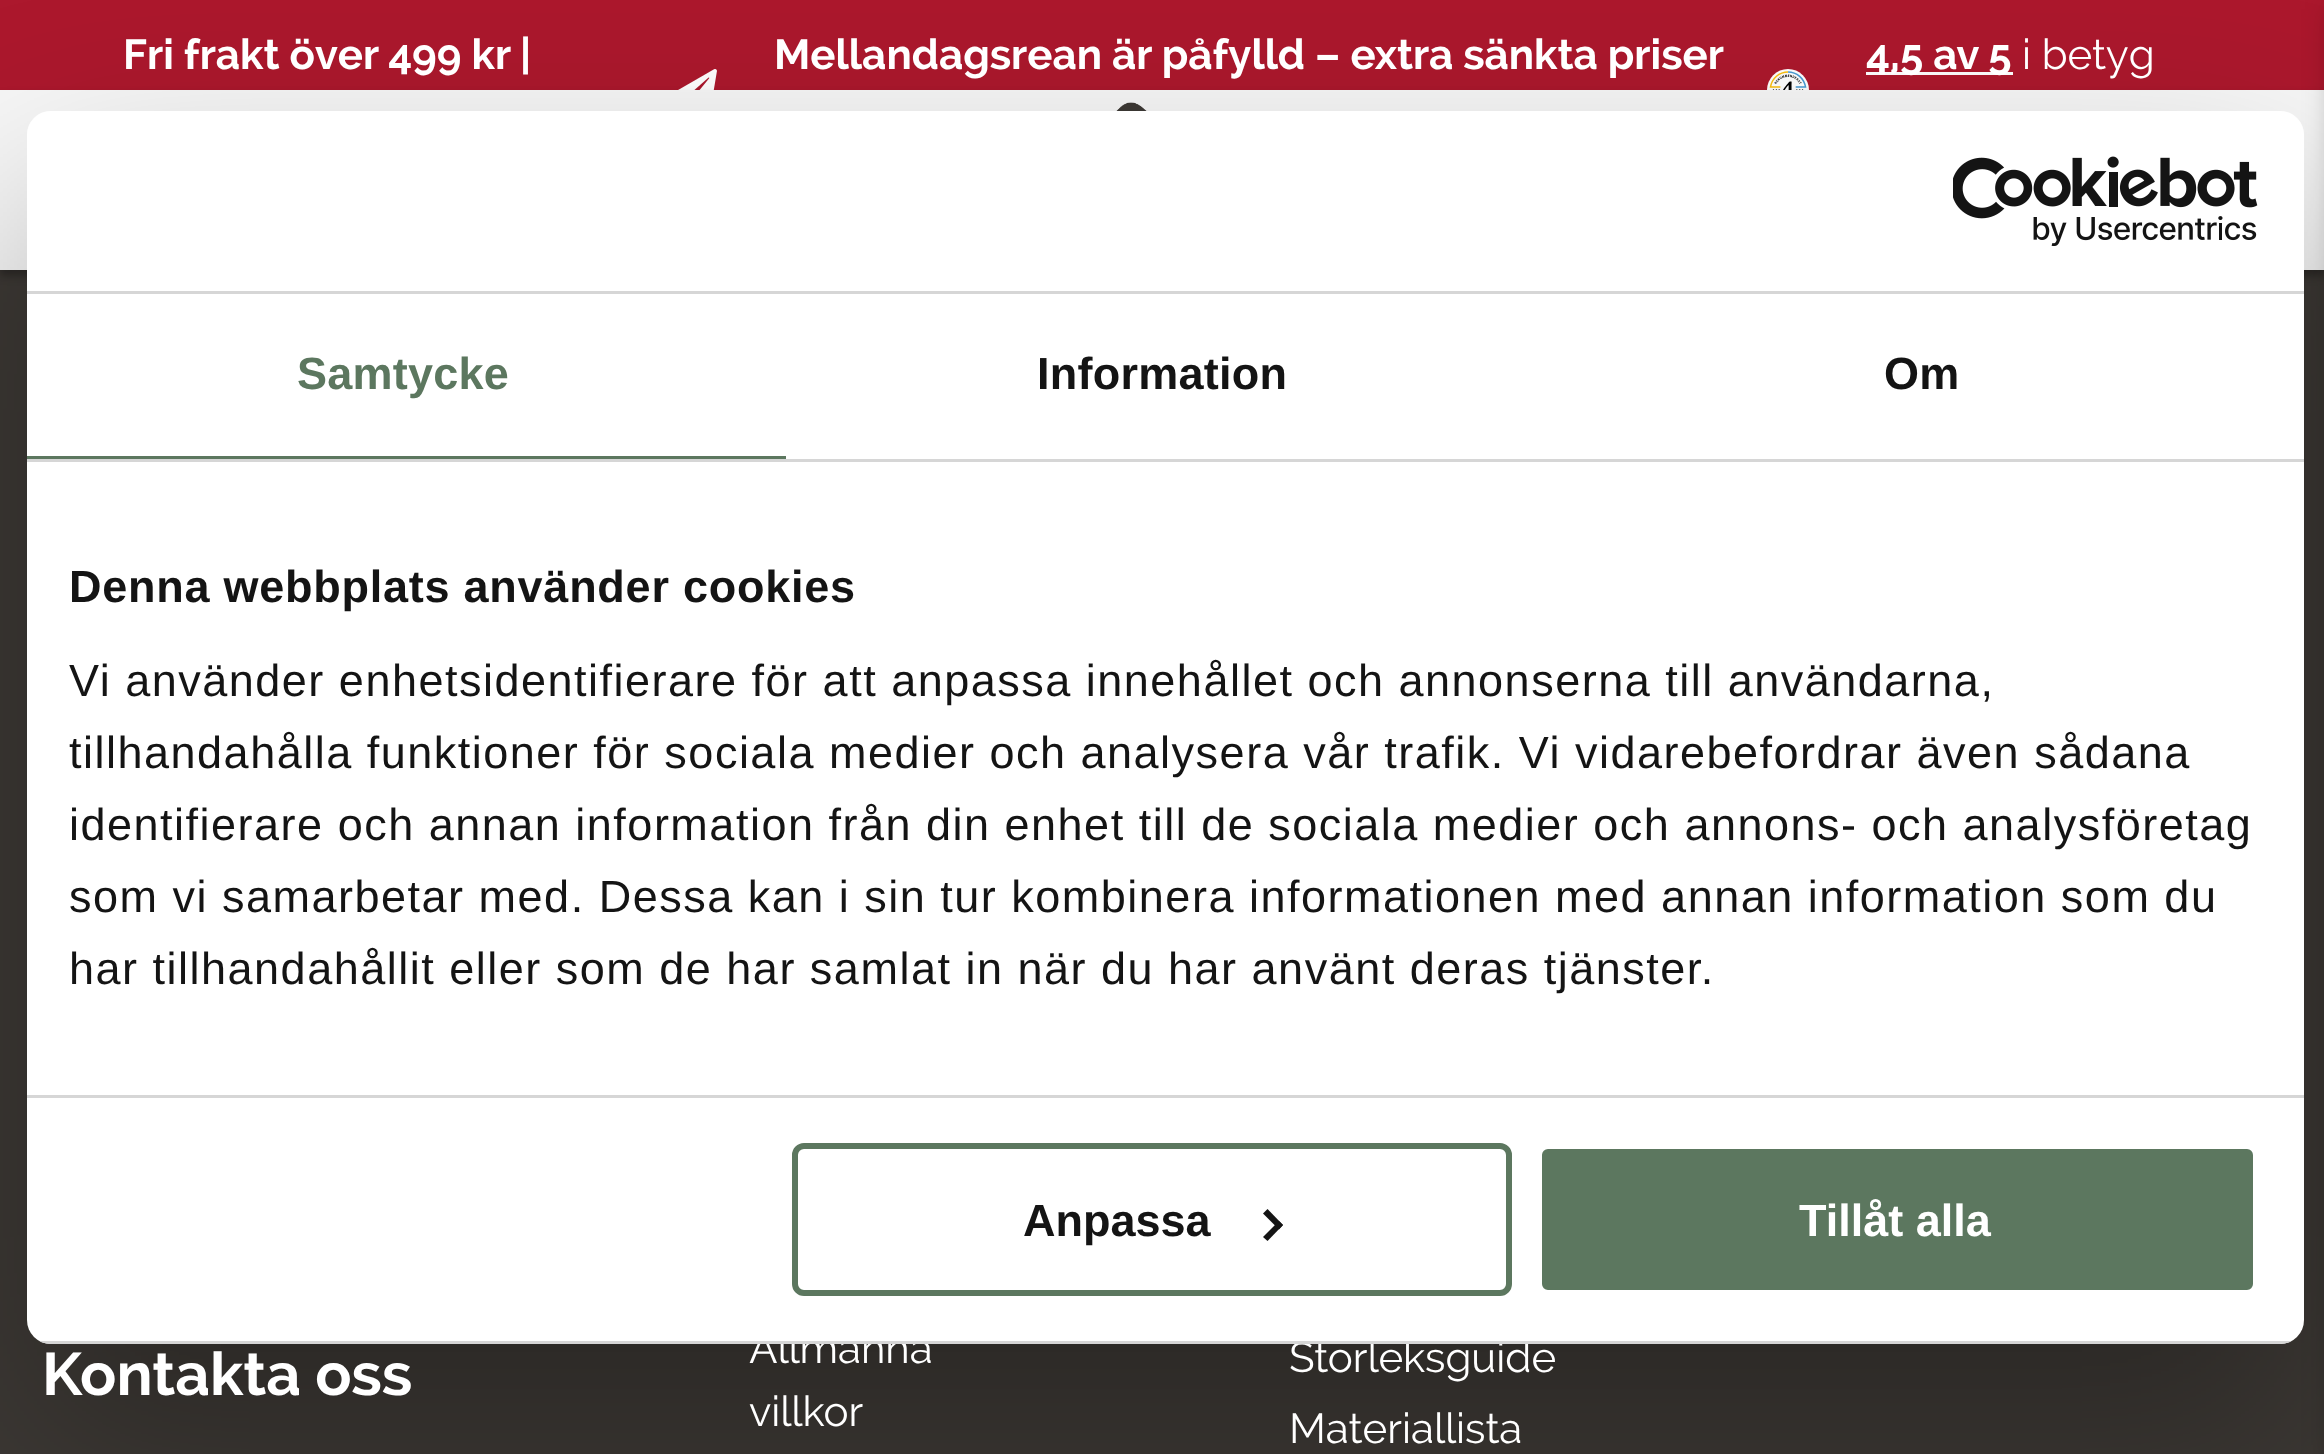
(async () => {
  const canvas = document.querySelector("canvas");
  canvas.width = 2324;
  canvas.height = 1454;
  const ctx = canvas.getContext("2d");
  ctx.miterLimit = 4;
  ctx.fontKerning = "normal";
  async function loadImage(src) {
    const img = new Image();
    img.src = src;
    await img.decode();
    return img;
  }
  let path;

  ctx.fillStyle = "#3d3935";
  ctx.fillRect(0, 0, 2324, 1454);
  ctx.fillStyle = "#ac182d";
  ctx.fillRect(0, 0, 2324, 90);
  ctx.drawImage(await loadImage("img/1.png"), 678, 69, 39, 21);
  ctx.drawImage(await loadImage("img/2.png"), 1767, 69, 42, 21);
  ctx.fillStyle = "#ffffff";
  ctx.fillRect(1866, 72, 147, 3);
  ctx.fillStyle = "rgba(0, 0, 0, 0.3)";
  ctx.filter = "blur(4.5px)";
  ctx.beginPath();
  ctx.rect(0, 96, 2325, 180);
  ctx.fill();
  ctx.filter = "none";
  ctx.fillStyle = "#f7f7f7";
  ctx.fillRect(0, 90, 2324, 180);
  ctx.fillStyle = "rgba(0, 0, 0, 0.31)";
  ctx.filter = "blur(15px)";
  ctx.beginPath();
  ctx.rect(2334, 9, 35, 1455);
  ctx.fill();
  ctx.filter = "none";
  ctx.drawImage(await loadImage("img/3.png"), 1116, 102, 31, 9);
  ctx.save();
  path = new Path2D("M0 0H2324V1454H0ZM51 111H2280C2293.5 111 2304 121.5 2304 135V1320C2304 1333.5 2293.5 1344 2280 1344H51C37.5 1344 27 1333.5 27 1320V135C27 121.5 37.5 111 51 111Z");
  ctx.clip(path, "evenodd");
  ctx.fillStyle = "rgba(0, 0, 0, 0.3)";
  ctx.filter = "blur(102px)";
  ctx.beginPath();
  ctx.roundRect(27, 207, 2277, 1233, 24);
  ctx.fill();
  ctx.filter = "none";
  ctx.restore();
  ctx.fillStyle = "#ffffff";
  ctx.beginPath();
  ctx.roundRect(27, 111, 2277, 1233, 24);
  ctx.fill();
  ctx.fillStyle = "#d6d6d6";
  ctx.fillRect(27, 291, 2277, 3);
  ctx.drawImage(await loadImage("img/4.png"), 1953, 156, 305, 90);
  for (const [x, y, w, h, color] of [
    [27, 459, 2277, 3, "#d6d6d6"],
    [27, 456, 759, 3, "#5c775f"],
    [27, 1095, 2277, 3, "#d6d6d6"],
  ]) {
    ctx.fillStyle = color;
    ctx.fillRect(x, y, w, h);
  }
  ctx.beginPath();
  ctx.roundRect(795, 1146, 714, 147, 9);
  ctx.strokeStyle = "#5c775f";
  ctx.lineWidth = 6;
  ctx.stroke();
  ctx.fillStyle = "#141414";
  path = new Path2D("M1267.5 1209L1283 1225L1279 1229.5L1263 1213.5Z");
  ctx.fill(path);
  path = new Path2D("M1279 1221L1283 1225L1267.5 1241L1263 1237Z");
  ctx.fill(path);
  ctx.fillStyle = "#5c775f";
  ctx.beginPath();
  ctx.roundRect(1539, 1146, 717, 147, 9);
  ctx.fill();
  ctx.strokeStyle = "#ffffff";
  ctx.stroke();
  ctx.font = "bold 42px Raleway";
  ctx.fillStyle = "#ffffff";
  for (const [text, x, y] of [
    ["Fri frakt över 499 kr |", 123, 69],
    ["Mellandagsrean är påfylld – extra sänkta priser", 774, 69],
    ["4,5 av 5", 1866, 69],
  ]) {
    ctx.fillText(text, x, y);
  }
  ctx.font = "42px Raleway";
  ctx.fillText("i betyg", 2022, 69);
  ctx.letterSpacing = "0.25px";
  ctx.font = "bold 45px Liberation Sans";
  ctx.fillStyle = "#5c775f";
  ctx.fillText("Samtycke", 297, 389);
  ctx.fillStyle = "#141414";
  ctx.fillText("Information", 1037, 389);
  ctx.fillText("Om", 1884, 389);
  ctx.letterSpacing = "0.75px";
  ctx.fillText("Denna webbplats använder cookies", 69, 602);
  ctx.letterSpacing = "1.5px";
  ctx.font = "45px Liberation Sans";
  for (const [text, x, y] of [
    ["Vi använder enhetsidentifierare för att anpassa innehållet och annonserna till användarna,", 69, 696],
    ["tillhandahålla funktioner för sociala medier och analysera vår trafik. Vi vidarebefordrar även sådana", 69, 768],
    ["identifierare och annan information från din enhet till de sociala medier och annons- och analysföretag", 69, 840],
    ["som vi samarbetar med. Dessa kan i sin tur kombinera informationen med annan information som du", 69, 912],
    ["har tillhandahållit eller som de har samlat in när du har använt deras tjänster.", 69, 984],
  ]) {
    ctx.fillText(text, x, y);
  }
  ctx.letterSpacing = "0px";
  ctx.font = "bold 45px Liberation Sans";
  ctx.fillText("Anpassa", 1023, 1236);
  ctx.fillStyle = "#ffffff";
  ctx.fillText("Tillåt alla", 1799, 1236);
  ctx.font = "bold 60px Raleway";
  ctx.fillText("Kontakta oss", 42, 1395);
  ctx.font = "42px Raleway";
  for (const [text, x, y] of [
    ["Allmänna", 749, 1363],
    ["villkor", 749, 1426],
    ["Storleksguide", 1289, 1372],
  ]) {
    ctx.fillText(text, x, y);
  }
  ctx.save();
  ctx.beginPath();
  ctx.roundRect(27, 111, 2277, 1233, 24);
  ctx.clip();
  ctx.fillStyle = "#d6d6d6";
  ctx.fillRect(39, 1341, 2253, 3);
  ctx.restore();
  ctx.fillText("Materiallista", 1289, 1443);
})();
